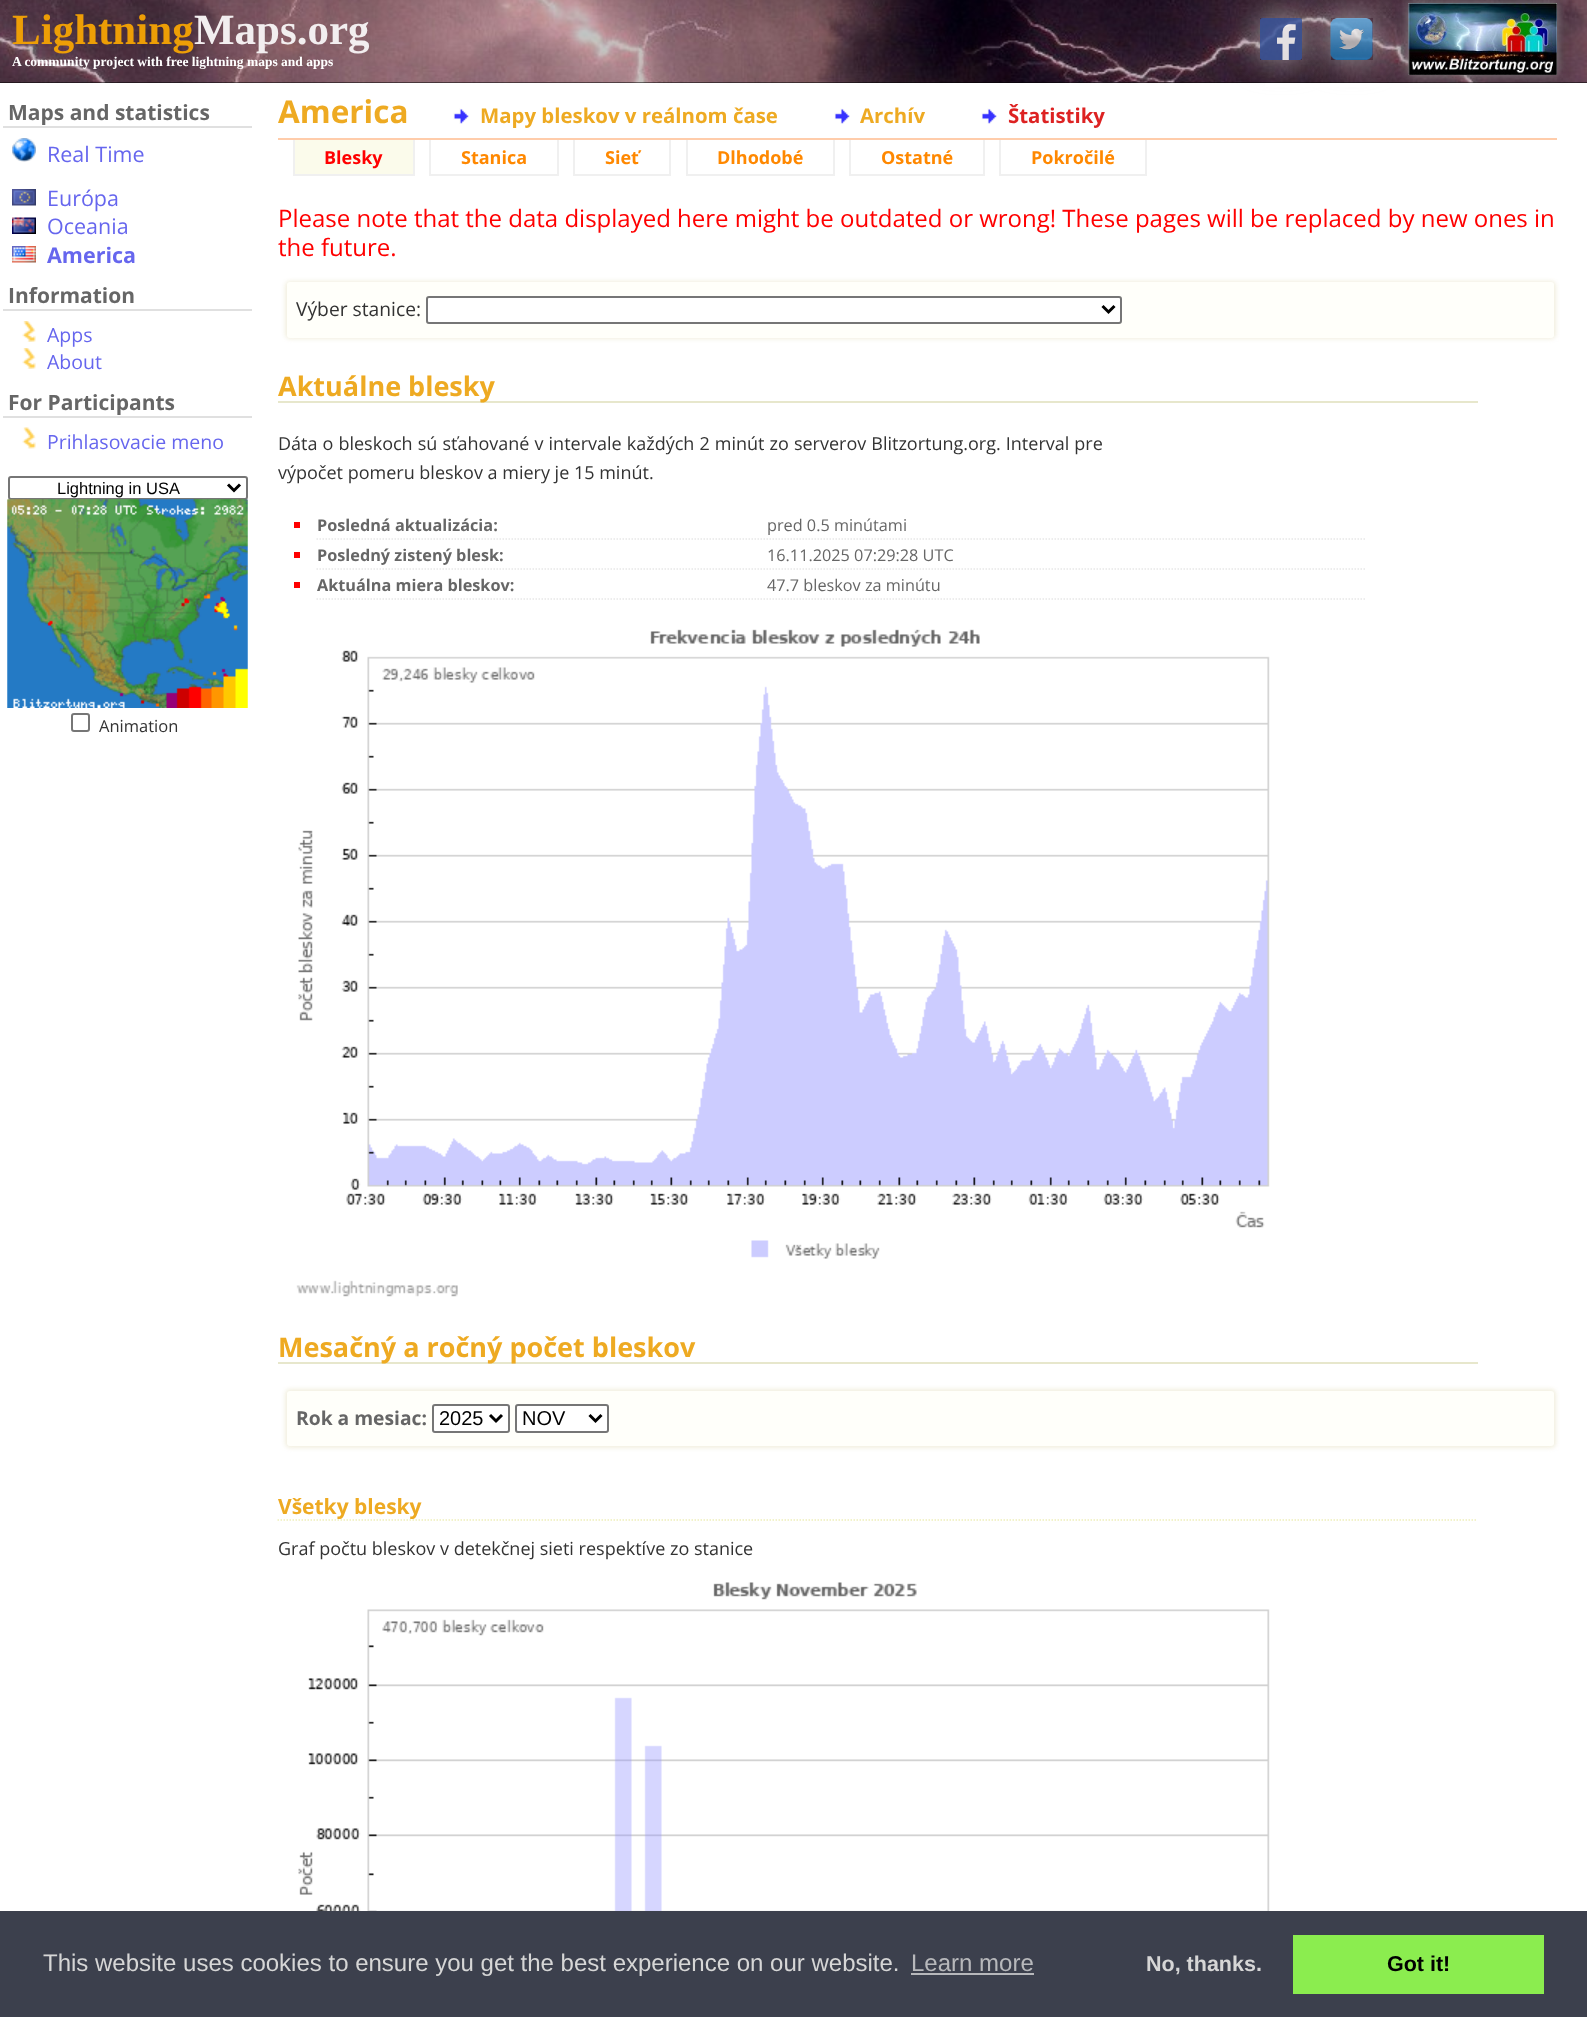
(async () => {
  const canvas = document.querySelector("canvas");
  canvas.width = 1587;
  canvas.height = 2017;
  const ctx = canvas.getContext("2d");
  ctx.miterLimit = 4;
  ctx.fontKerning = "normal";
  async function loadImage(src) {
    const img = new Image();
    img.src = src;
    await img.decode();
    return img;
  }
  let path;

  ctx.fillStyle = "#ffffff";
  ctx.fillRect(0, 0, 1587, 2017);
  ctx.fillStyle = "#000000";
  ctx.fillRect(0, 82, 1587, 1);
  ctx.drawImage(await loadImage("img/1.png"), 0, 0, 1587, 83);
  ctx.save();
  path = new Path2D("M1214 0H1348V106H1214ZM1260 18H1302V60H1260Z");
  ctx.clip(path, "evenodd");
  ctx.fillStyle = "rgba(170, 170, 170, 0.85)";
  ctx.filter = "blur(15px)";
  ctx.beginPath();
  ctx.rect(1260, 18, 42, 42);
  ctx.fill();
  ctx.filter = "none";
  ctx.restore();
  ctx.drawImage(await loadImage("img/2.png"), 1260, 18, 42, 42);
  ctx.fillStyle = "#888888";
  ctx.filter = "blur(6px)";
  ctx.beginPath();
  ctx.rect(1409, 3, 148, 72);
  ctx.fill();
  ctx.filter = "none";
  ctx.drawImage(await loadImage("img/4.png"), 1408, 3, 149, 72);
  ctx.save();
  path = new Path2D("M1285 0H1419V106H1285ZM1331 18H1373V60H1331Z");
  ctx.clip(path, "evenodd");
  ctx.fillStyle = "rgba(170, 170, 170, 0.85)";
  ctx.filter = "blur(15px)";
  ctx.beginPath();
  ctx.rect(1331, 18, 42, 42);
  ctx.fill();
  ctx.filter = "none";
  ctx.restore();
  ctx.drawImage(await loadImage("img/3.png"), 1330, 18, 43, 42);
  ctx.fillStyle = "#e0e0e0";
  ctx.fillRect(3, 126, 249, 2);
  ctx.drawImage(await loadImage("img/5.png"), 12, 138, 24, 24);
  ctx.drawImage(await loadImage("img/6.png"), 12, 189, 24, 17);
  ctx.drawImage(await loadImage("img/7.png"), 12, 217, 24, 17);
  ctx.drawImage(await loadImage("img/8.png"), 12, 246, 24, 17);
  ctx.fillRect(3, 309, 249, 2);
  ctx.drawImage(await loadImage("img/9.png"), 22, 321, 14, 21);
  ctx.drawImage(await loadImage("img/9.png"), 22, 348, 14, 21);
  ctx.fillRect(3, 416, 249, 2);
  ctx.drawImage(await loadImage("img/10.png"), 22, 427, 14, 22);
  ctx.beginPath();
  ctx.roundRect(9, 477, 238, 22, 2);
  ctx.strokeStyle = "#767676";
  ctx.lineWidth = 2;
  ctx.stroke();
  path = new Path2D("M228 484.5L234 490.5L240 484.5");
  ctx.strokeStyle = "#000000";
  ctx.lineWidth = 3;
  ctx.stroke(path);
  ctx.drawImage(await loadImage("img/11.png"), 7, 499, 241, 209);
  ctx.drawImage(await loadImage("img/12.png"), 7, 499, 241, 209);
  ctx.beginPath();
  ctx.roundRect(72, 714, 17, 17, 2);
  ctx.strokeStyle = "#767676";
  ctx.lineWidth = 2;
  ctx.stroke();
  ctx.fillStyle = "#ffffff";
  ctx.fillRect(1265, 83, 296, 4);
  ctx.fillStyle = "#ffccaa";
  ctx.fillRect(278, 138, 1279, 2);
  ctx.drawImage(await loadImage("img/13.png"), 453, 108, 16, 16);
  ctx.drawImage(await loadImage("img/14.png"), 834, 108, 16, 16);
  ctx.drawImage(await loadImage("img/14.png"), 981, 108, 16, 16);
  for (const [x, y, w, h, color] of [
    [295, 140, 118, 34, "#fbfbeb"],
    [413, 140, 2, 36, "#f0f0f0"],
    [293, 174, 121, 2, "#f0f0f0"],
    [293, 140, 2, 36, "#f0f0f0"],
    [557, 140, 2, 36, "#f0f0f0"],
    [429, 174, 129, 2, "#f0f0f0"],
    [429, 140, 2, 36, "#f0f0f0"],
    [669, 140, 2, 36, "#f0f0f0"],
    [573, 174, 98, 2, "#f0f0f0"],
    [573, 140, 2, 36, "#f0f0f0"],
    [833, 140, 2, 36, "#f0f0f0"],
    [686, 174, 148, 2, "#f0f0f0"],
    [686, 140, 2, 36, "#f0f0f0"],
    [983, 140, 2, 36, "#f0f0f0"],
    [849, 174, 135, 2, "#f0f0f0"],
    [849, 140, 2, 36, "#f0f0f0"],
    [1145, 140, 2, 36, "#f0f0f0"],
    [999, 174, 147, 2, "#f0f0f0"],
    [999, 140, 2, 36, "#f0f0f0"],
  ]) {
    ctx.fillStyle = color;
    ctx.fillRect(x, y, w, h);
  }
  ctx.fillStyle = "#f2efdf";
  ctx.filter = "blur(2px)";
  ctx.beginPath();
  ctx.roundRect(285, 281, 1271, 58, 5);
  ctx.fill();
  ctx.filter = "none";
  ctx.fillStyle = "#fffffa";
  ctx.beginPath();
  ctx.roundRect(287, 282, 1267, 56, 3);
  ctx.fill();
  ctx.fillStyle = "#ffffff";
  ctx.beginPath();
  ctx.roundRect(427, 297, 694, 26, 2);
  ctx.fill();
  ctx.stroke();
  path = new Path2D("M1102.5 306L1108.5 312L1114.5 306");
  ctx.strokeStyle = "#000000";
  ctx.lineWidth = 3;
  ctx.stroke(path);
  ctx.fillStyle = "#e7e7cc";
  ctx.fillRect(278, 401, 1200, 2);
  path = new Path2D("M316.5 539H1366.5");
  ctx.strokeStyle = "#e7e7e7";
  ctx.lineWidth = 1.5;
  ctx.setLineDash([1.5, 1.5]);
  ctx.stroke(path);
  ctx.fillStyle = "#ff0000";
  ctx.fillRect(294, 522, 6, 6);
  path = new Path2D("M316.5 569H1366.5");
  ctx.stroke(path);
  ctx.fillRect(294, 552, 6, 6);
  path = new Path2D("M316.5 599H1366.5");
  ctx.stroke(path);
  ctx.fillRect(294, 582, 6, 6);
  ctx.drawImage(await loadImage("img/15.png"), 296, 629, 974, 668);
  ctx.fillStyle = "#e7e7cc";
  ctx.fillRect(278, 1362, 1200, 2);
  ctx.fillStyle = "#f2efdf";
  ctx.filter = "blur(2px)";
  ctx.beginPath();
  ctx.roundRect(285, 1389, 1271, 59, 5);
  ctx.fill();
  ctx.filter = "none";
  ctx.fillStyle = "#fffffa";
  ctx.beginPath();
  ctx.roundRect(287, 1391, 1267, 55, 3);
  ctx.fill();
  ctx.fillStyle = "#ffffff";
  ctx.beginPath();
  ctx.roundRect(433, 1405, 76, 27, 2);
  ctx.fill();
  ctx.strokeStyle = "#767676";
  ctx.lineWidth = 2;
  ctx.setLineDash([]);
  ctx.stroke();
  path = new Path2D("M490 1415L496 1421L502 1415");
  ctx.strokeStyle = "#000000";
  ctx.lineWidth = 3;
  ctx.stroke(path);
  ctx.beginPath();
  ctx.roundRect(516, 1405, 92, 27, 2);
  ctx.fill();
  ctx.strokeStyle = "#767676";
  ctx.lineWidth = 2;
  ctx.stroke();
  path = new Path2D("M589.5 1415L595.5 1421L601.5 1415");
  ctx.strokeStyle = "#000000";
  ctx.lineWidth = 3;
  ctx.stroke(path);
  path = new Path2D("M277.5 1520H1477.5");
  ctx.strokeStyle = "#eeeebb";
  ctx.lineWidth = 1.5;
  ctx.setLineDash([1.5, 1.5]);
  ctx.stroke(path);
  ctx.drawImage(await loadImage("img/16.png"), 298, 1582, 972, 329);
  for (const [x, y, w, h, color] of [
    [0, 1911, 1587, 106, "#3c404d"],
    [911, 1973, 123, 2, "#b7b8bb"],
    [1293, 1935, 251, 59, "#8bed4f"],
  ]) {
    ctx.fillStyle = color;
    ctx.fillRect(x, y, w, h);
  }
  ctx.font = "bold 43px Liberation Serif";
  ctx.fillStyle = "#ed9e06";
  ctx.fillText("Lightning", 12, 44);
  ctx.fillStyle = "#f2eeef";
  ctx.fillText("Maps.org", 194, 44);
  ctx.font = "bold 13.5px Liberation Serif";
  ctx.fillStyle = "#ffffff";
  ctx.fillText("A community project with free lightning maps and apps", 12, 66);
  ctx.font = "bold 21px Open Sans";
  ctx.fillStyle = "#666666";
  ctx.fillText("Maps and statistics", 8, 120);
  ctx.font = "21.5px Open Sans";
  ctx.fillStyle = "#6666ee";
  for (const [text, x, y] of [
    ["Real Time", 47, 162],
    ["Európa", 47, 206],
    ["Oceania", 47, 234],
  ]) {
    ctx.fillText(text, x, y);
  }
  ctx.font = "bold 21.5px Open Sans";
  ctx.fillText("America", 47, 263);
  ctx.font = "bold 21px Open Sans";
  ctx.fillStyle = "#666666";
  ctx.fillText("Information", 8, 303);
  ctx.font = "19.5px Open Sans";
  ctx.fillStyle = "#6666ee";
  ctx.fillText("Apps", 47, 342);
  ctx.fillText("About", 47, 369);
  ctx.font = "bold 21px Open Sans";
  ctx.fillStyle = "#666666";
  ctx.fillText("For Participants", 8, 410);
  ctx.font = "19.5px Open Sans";
  ctx.fillStyle = "#6666ee";
  ctx.fillText("Prihlasovacie meno", 47, 449);
  ctx.font = "16.5px Liberation Sans";
  ctx.fillStyle = "#000000";
  ctx.fillText("Lightning in USA", 57, 494);
  ctx.font = "16.5px Open Sans";
  ctx.fillStyle = "#333333";
  ctx.fillText("Animation", 99, 732);
  ctx.font = "bold 31.5px Open Sans";
  ctx.fillStyle = "#eeaa22";
  ctx.fillText("America", 278, 123);
  ctx.font = "bold 20.4px Open Sans";
  ctx.fillText("Mapy bleskov v reálnom čase", 480, 123);
  ctx.fillText("Archív", 860, 123);
  ctx.fillStyle = "#dd2222";
  ctx.fillText("Štatistiky", 1008, 123);
  ctx.font = "bold 18px Open Sans";
  ctx.fillStyle = "#ff0000";
  ctx.fillText("Blesky", 324, 164);
  ctx.fillStyle = "#ff8800";
  for (const [text, x, y] of [
    ["Stanica", 461, 164],
    ["Sieť", 605, 164],
    ["Dlhodobé", 717, 164],
    ["Ostatné", 881, 164],
    ["Pokročilé", 1031, 164],
  ]) {
    ctx.fillText(text, x, y);
  }
  ctx.font = "24px Open Sans";
  ctx.fillStyle = "#ff0000";
  ctx.fillText("Please note that the data displayed here might be outdated or wrong! These pages will be replaced by new ones in", 278, 227);
  ctx.fillText("the future.", 278, 256);
  ctx.font = "19.25px Open Sans";
  ctx.fillStyle = "#333333";
  ctx.fillText("Výber stanice:", 296, 316);
  ctx.font = "bold 27px Open Sans";
  ctx.fillStyle = "#eeaa22";
  ctx.fillText("Aktuálne blesky", 278, 396);
  ctx.wordSpacing = "0.4px";
  ctx.font = "18px Open Sans";
  ctx.fillStyle = "#333333";
  ctx.fillText("Dáta o bleskoch sú sťahované v intervale každých 2 minút zo serverov Blitzortung.org. Interval pre", 278, 450);
  ctx.wordSpacing = "0px";
  ctx.fillText("výpočet pomeru bleskov a miery je 15 minút.", 278, 479);
  ctx.font = "bold 16.25px Open Sans";
  ctx.fillStyle = "#666666";
  ctx.fillText("Posledná aktualizácia:", 317, 531);
  ctx.font = "16.25px Open Sans";
  ctx.fillText("pred 0.5 minútami", 767, 531);
  ctx.font = "bold 16.25px Open Sans";
  ctx.fillText("Posledný zistený blesk:", 317, 561);
  ctx.font = "16.25px Open Sans";
  ctx.fillText("16.11.2025 07:29:28 UTC", 767, 561);
  ctx.font = "bold 16.25px Open Sans";
  ctx.fillText("Aktuálna miera bleskov:", 317, 591);
  ctx.font = "16.25px Open Sans";
  ctx.fillText("47.7 bleskov za minútu", 767, 591);
  ctx.font = "bold 27px Open Sans";
  ctx.fillStyle = "#eeaa22";
  ctx.fillText("Mesačný a ročný počet bleskov", 278, 1357);
  ctx.font = "bold 19.25px Open Sans";
  ctx.fillStyle = "#666666";
  ctx.fillText("Rok a mesiac:", 296, 1425);
  ctx.font = "20px Liberation Sans";
  ctx.fillStyle = "#000000";
  ctx.fillText("2025", 439, 1425);
  ctx.fillText("NOV", 522, 1425);
  ctx.font = "bold 21px Open Sans";
  ctx.fillStyle = "#eeaa22";
  ctx.fillText("Všetky blesky", 278, 1514);
  ctx.font = "18px Open Sans";
  ctx.fillStyle = "#333333";
  ctx.fillText("Graf počtu bleskov v detekčnej sieti respektíve zo stanice", 278, 1555);
  ctx.font = "24px Liberation Sans";
  ctx.fillStyle = "#d6d6d6";
  ctx.fillText("This website uses cookies to ensure you get the best experience on our website.", 43, 1971);
  ctx.fillStyle = "#b7b8bb";
  ctx.fillText("Learn more", 911, 1971);
  ctx.font = "bold 21.5px Liberation Sans";
  ctx.fillStyle = "#d6d6d6";
  ctx.fillText("No, thanks.", 1146, 1971);
  ctx.fillStyle = "#000000";
  ctx.fillText("Got it!", 1387, 1971);
})();
